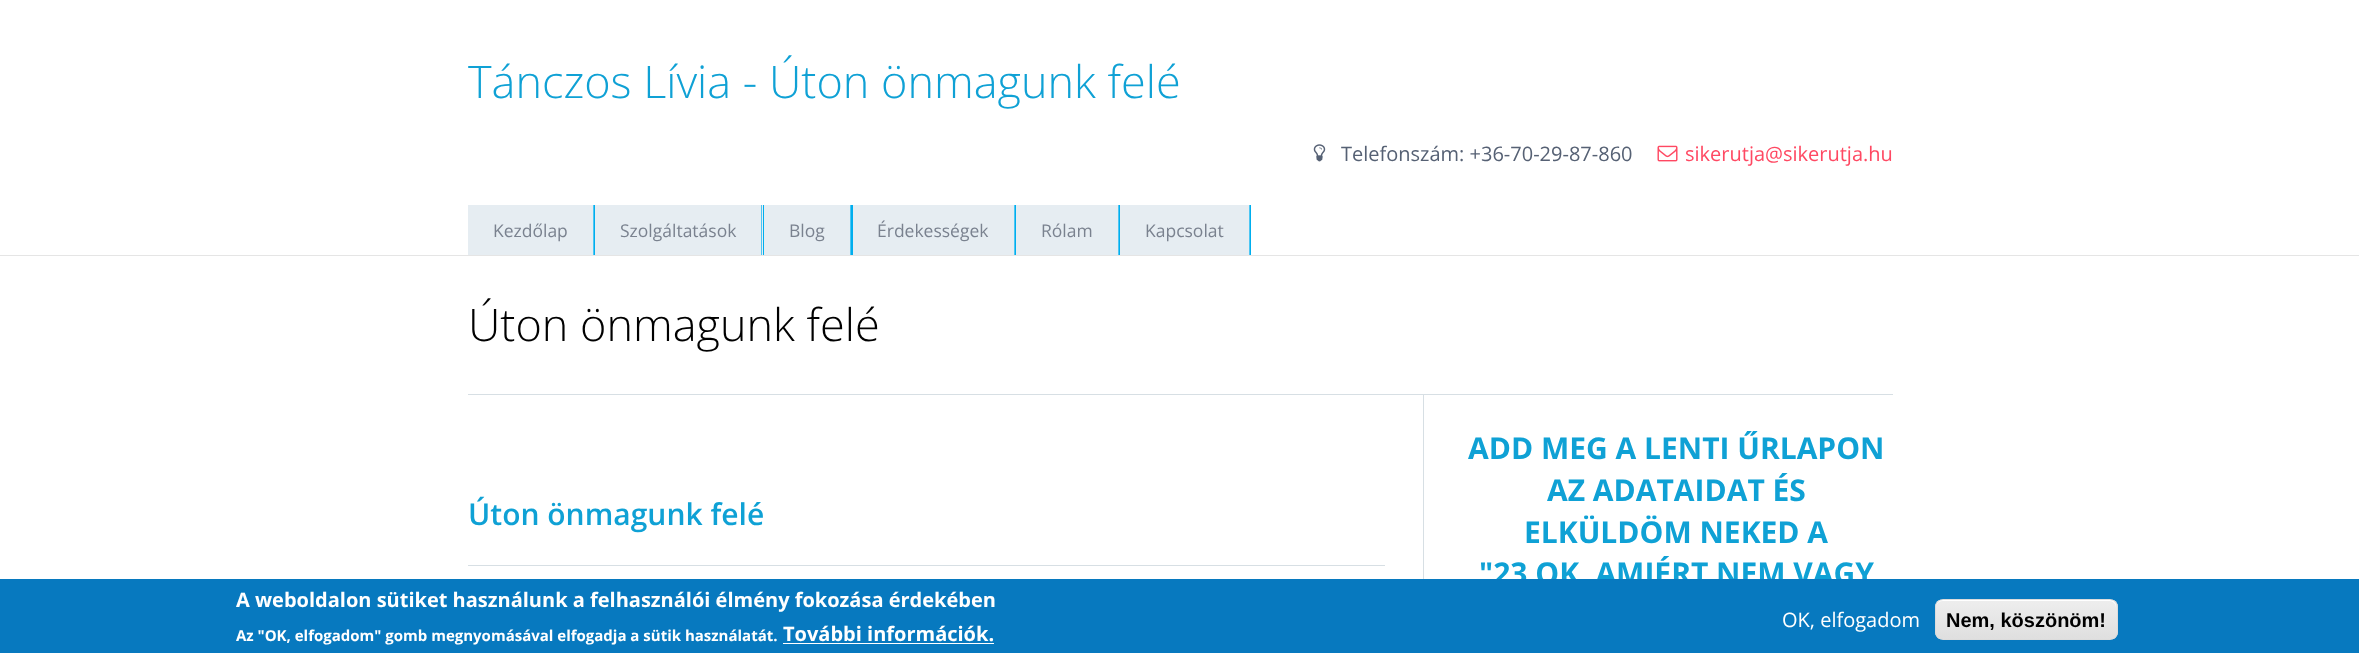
(async () => {
  const canvas = document.querySelector("canvas");
  canvas.width = 2359;
  canvas.height = 653;
  const ctx = canvas.getContext("2d");
  ctx.miterLimit = 4;
  ctx.fontKerning = "normal";
  async function loadImage(src) {
    const img = new Image();
    img.src = src;
    await img.decode();
    return img;
  }
  let gradient, path;

  ctx.fillStyle = "#ffffff";
  ctx.fillRect(0, 0, 2359, 653);
  ctx.drawImage(await loadImage("img/1.png"), 1313, 144, 13, 18);
  ctx.drawImage(await loadImage("img/2.png"), 1657, 145, 21, 17);
  ctx.save();
  ctx.beginPath();
  ctx.rect(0, 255, 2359, 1);
  ctx.clip();
  ctx.fillStyle = "rgba(0, 0, 0, 0.1)";
  ctx.filter = "blur(0.5px)";
  ctx.beginPath();
  ctx.rect(0, 206, 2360, 50);
  ctx.fill();
  ctx.filter = "none";
  ctx.restore();
  for (const [x, y, w, h, color] of [
    [594, 205, 657, 50, "#00aeee"],
    [468, 205, 125, 50, "#e6edf2"],
    [593, 205, 1, 50, "#4dc6f3"],
    [595, 205, 168, 50, "#e6edf2"],
    [761, 205, 1, 50, "#4dc6f3"],
    [764, 205, 86, 50, "#e6edf2"],
    [850, 205, 1, 50, "#4dc6f3"],
    [853, 205, 161, 50, "#e6edf2"],
    [1014, 205, 1, 50, "#4dc6f3"],
    [1016, 205, 102, 50, "#e6edf2"],
    [1118, 205, 1, 50, "#4dc6f3"],
    [1120, 205, 129, 50, "#e6edf2"],
    [1249, 205, 1, 50, "#4dc6f3"],
    [468, 394, 1425, 1, "#d7dfe4"],
    [1423, 395, 1, 184, "#d7dfe4"],
    [468, 565, 917, 1, "#d7dfe4"],
  ]) {
    ctx.fillStyle = color;
    ctx.fillRect(x, y, w, h);
  }
  ctx.font = "300 45px Open Sans";
  ctx.fillStyle = "#0fa1d5";
  ctx.fillText("Tánczos Lívia - Úton önmagunk felé", 468, 98);
  ctx.font = "20px Open Sans";
  ctx.fillStyle = "#566174";
  ctx.fillText("Telefonszám: +36-70-29-87-860", 1341, 161);
  ctx.fillStyle = "#ff4862";
  ctx.fillText("sikerutja@sikerutja.hu", 1685, 161);
  ctx.font = "17.5px Open Sans";
  ctx.fillStyle = "#7a828f";
  for (const [text, x, y] of [
    ["Kezdőlap", 493, 237],
    ["Szolgáltatások", 620, 237],
    ["Blog", 789, 237],
    ["Érdekességek", 877, 237],
    ["Rólam", 1041, 237],
    ["Kapcsolat", 1145, 237],
  ]) {
    ctx.fillText(text, x, y);
  }
  ctx.font = "300 45px Open Sans";
  ctx.fillStyle = "#000000";
  ctx.fillText("Úton önmagunk felé", 468, 341);
  ctx.font = "600 30px Open Sans";
  ctx.fillStyle = "#0fa1d5";
  ctx.fillText("Úton önmagunk felé", 468, 525);
  ctx.font = "bold 30px Open Sans";
  for (const [text, x, y] of [
    ["ADD MEG A LENTI ŰRLAPON", 1468, 459],
    ["AZ ADATAIDAT ÉS", 1547, 501],
    ["ELKÜLDÖM NEKED A", 1524, 543],
    ["\"23 OK, AMIÉRT NEM VAGY", 1479, 584],
  ]) {
    ctx.fillText(text, x, y);
  }
  ctx.fillStyle = "#0779bf";
  ctx.fillRect(0, 579, 2359, 74);
  ctx.font = "bold 20px Open Sans";
  ctx.fillStyle = "#ffffff";
  ctx.fillText("A weboldalon sütiket használunk a felhasználói élmény fokozása érdekében", 236, 607);
  ctx.font = "bold 15px Open Sans";
  ctx.fillText("Az \"OK, elfogadom\" gomb megnyomásával elfogadja a sütik használatát.", 236, 641);
  ctx.font = "bold 20px Open Sans";
  ctx.fillText("További információk.", 783, 641);
  ctx.fillRect(783, 643, 211, 1);
  ctx.font = "20px Open Sans";
  ctx.fillText("OK, elfogadom", 1782, 627);
  ctx.save();
  ctx.beginPath();
  ctx.roundRect(1935, 599, 183, 41, 8);
  ctx.clip();
  gradient = ctx.createLinearGradient(2026, 600, 2026, 639);
  gradient.addColorStop(0.05, "#ededed");
  gradient.addColorStop(1, "#dfdfdf");
  ctx.fillStyle = gradient;
  ctx.fillRect(1935, 600, 183, 39);
  ctx.restore();
  path = new Path2D("M1942 601H2110C2113 601 2116 604 2116 608V606C2116 603 2113 600 2110 600H1942C1939 600 1936 603 1936 606V608C1936 604 1939 601 1942 601Z");
  ctx.fill(path);
  ctx.beginPath();
  ctx.roundRect(1935.5, 599.5, 182, 40, 7.5);
  ctx.strokeStyle = "#dcdcdc";
  ctx.stroke();
  ctx.font = "bold 20px Liberation Sans";
  ctx.fillStyle = "#000000";
  ctx.fillText("Nem, köszönöm!", 1946, 627);
})();
